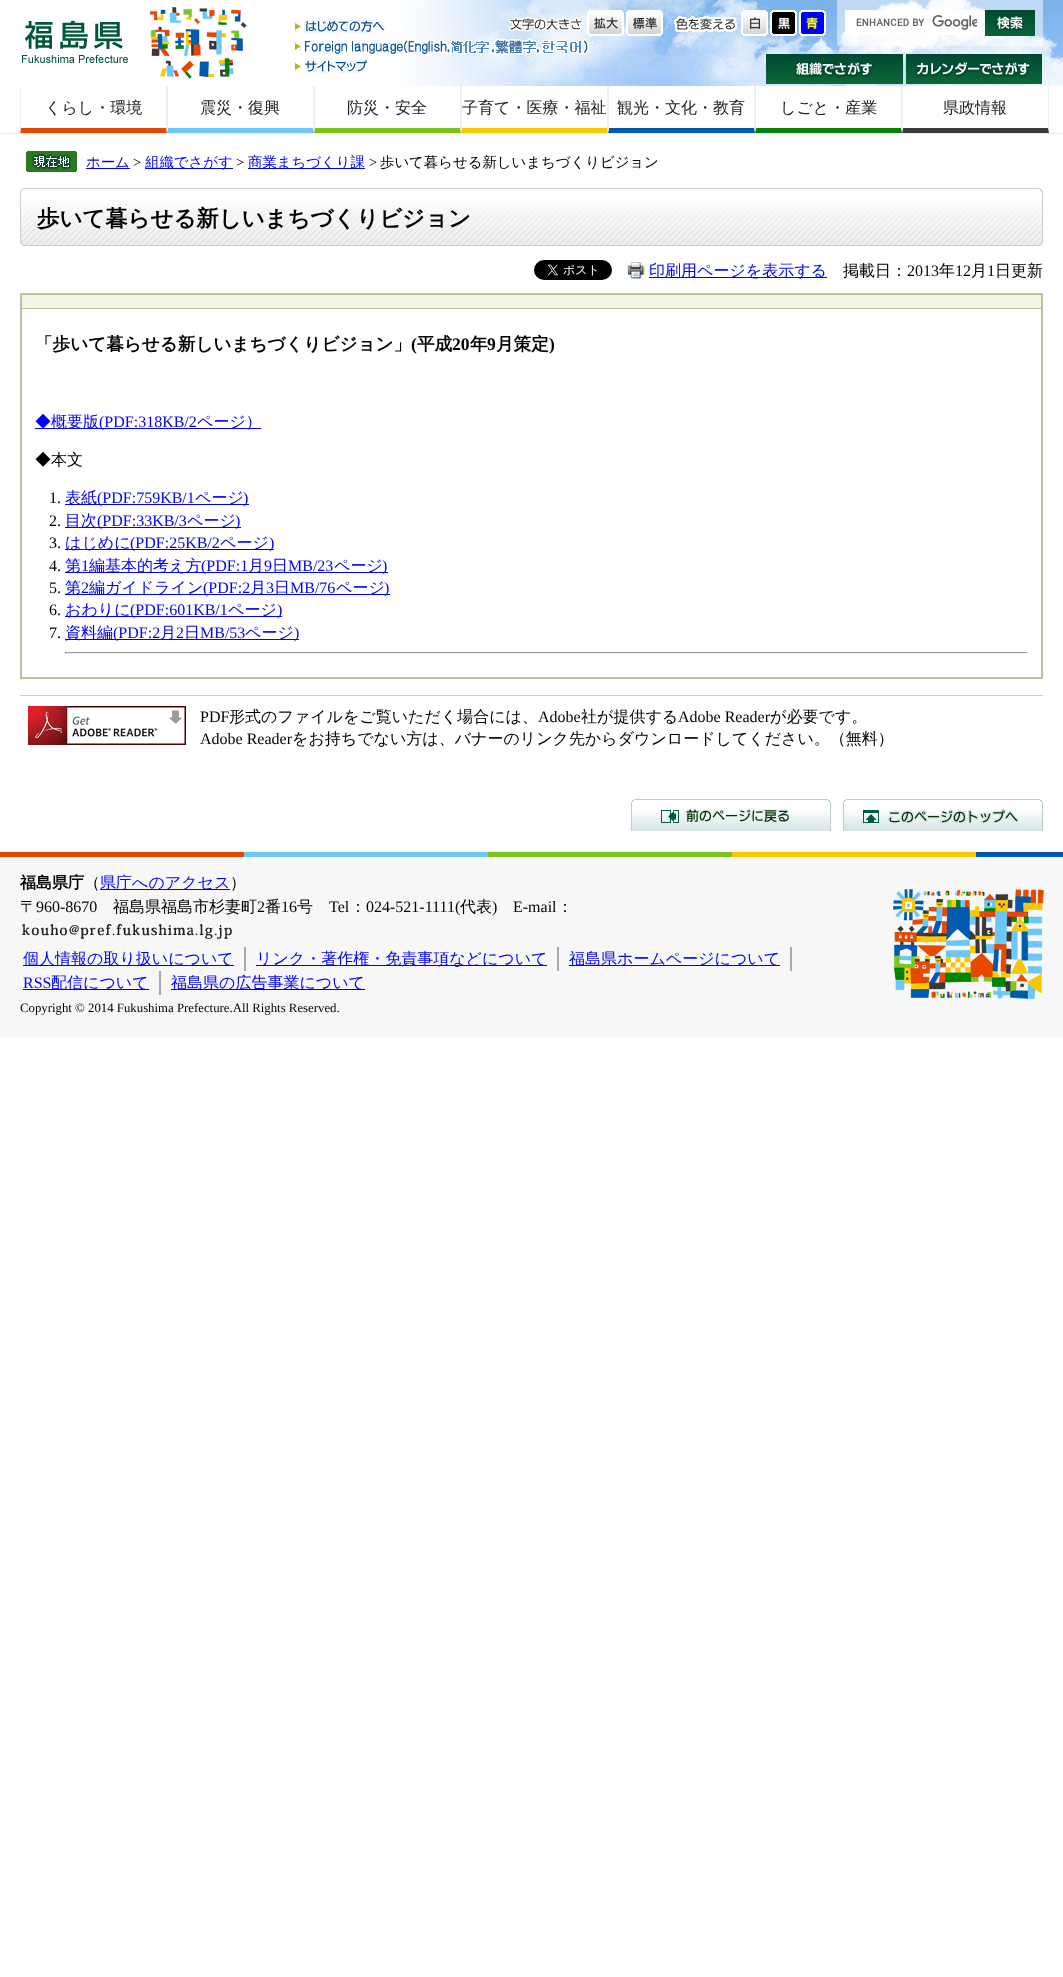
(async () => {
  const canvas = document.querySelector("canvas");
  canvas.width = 1063;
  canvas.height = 1977;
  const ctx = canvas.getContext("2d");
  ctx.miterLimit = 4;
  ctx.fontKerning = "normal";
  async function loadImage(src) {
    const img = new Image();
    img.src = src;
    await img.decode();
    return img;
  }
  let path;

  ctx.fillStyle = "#ffffff";
  ctx.fillRect(0, 0, 1063, 1977);
  ctx.drawImage(await loadImage("img/1.png"), 401, 0, 662, 86);
  ctx.drawImage(await loadImage("img/2.png"), 150, 7, 97, 72);
  ctx.drawImage(await loadImage("img/3.png"), 22, 20, 106, 43);
  ctx.drawImage(await loadImage("img/4.png"), 294, 18, 92, 16);
  ctx.drawImage(await loadImage("img/5.png"), 294, 18, 91, 15);
  ctx.drawImage(await loadImage("img/6.png"), 294, 38, 299, 18);
  ctx.drawImage(await loadImage("img/7.png"), 295, 38, 298, 18);
  ctx.drawImage(await loadImage("img/8.png"), 294, 58, 75, 16);
  ctx.drawImage(await loadImage("img/9.png"), 295, 60, 72, 13);
  ctx.drawImage(await loadImage("img/10.png"), 509, 17, 74, 14);
  ctx.drawImage(await loadImage("img/11.png"), 587, 10, 37, 26);
  ctx.drawImage(await loadImage("img/12.png"), 626, 10, 37, 26);
  ctx.drawImage(await loadImage("img/13.png"), 674, 16, 63, 16);
  ctx.drawImage(await loadImage("img/14.png"), 741, 10, 27, 26);
  ctx.drawImage(await loadImage("img/15.png"), 770, 10, 27, 26);
  ctx.drawImage(await loadImage("img/16.png"), 799, 10, 27, 26);
  ctx.fillStyle = "rgba(255, 255, 255, 0.5)";
  ctx.fillRect(837, 0, 206, 46);
  ctx.fillStyle = "#ffffff";
  ctx.fillRect(847, 12, 130, 21);
  ctx.drawImage(await loadImage("img/17.png"), 856, 15, 121, 15);
  ctx.strokeStyle = "#ffffff";
  ctx.lineWidth = 2;
  ctx.strokeRect(846, 11, 132, 23);
  ctx.drawImage(await loadImage("img/18.png"), 985, 10, 50, 26);
  ctx.drawImage(await loadImage("img/19.png"), 766, 54, 137, 30);
  ctx.drawImage(await loadImage("img/20.png"), 906, 54, 136, 30);
  ctx.fillStyle = "#eeeeee";
  ctx.fillRect(0, 133, 1063, 1);
  path = new Path2D("M167 86V133L166 128V86Z");
  ctx.fill(path);
  ctx.fillStyle = "#e74600";
  path = new Path2D("M167 133H20L21 128H166Z");
  ctx.fill(path);
  ctx.fillStyle = "#eeeeee";
  path = new Path2D("M20 133V86H21V128Z");
  ctx.fill(path);
  path = new Path2D("M314 86V133L313 128V86Z");
  ctx.fill(path);
  ctx.fillStyle = "#6dc8f5";
  path = new Path2D("M314 133H167L168 128H313Z");
  ctx.fill(path);
  ctx.fillStyle = "#eeeeee";
  path = new Path2D("M167 133V86H168V128Z");
  ctx.fill(path);
  path = new Path2D("M461 86V133L460 128V86Z");
  ctx.fill(path);
  ctx.fillStyle = "#7ec21d";
  path = new Path2D("M461 133H314L315 128H460Z");
  ctx.fill(path);
  ctx.fillStyle = "#eeeeee";
  path = new Path2D("M314 133V86H315V128Z");
  ctx.fill(path);
  path = new Path2D("M608 86V133L607 128V86Z");
  ctx.fill(path);
  ctx.fillStyle = "#f9c801";
  path = new Path2D("M608 133H461L462 128H607Z");
  ctx.fill(path);
  ctx.fillStyle = "#eeeeee";
  path = new Path2D("M461 133V86H462V128Z");
  ctx.fill(path);
  path = new Path2D("M755 86V133L754 128V86Z");
  ctx.fill(path);
  ctx.fillStyle = "#005ab0";
  path = new Path2D("M755 133H608L609 128H754Z");
  ctx.fill(path);
  ctx.fillStyle = "#eeeeee";
  path = new Path2D("M608 133V86H609V128Z");
  ctx.fill(path);
  path = new Path2D("M902 86V133L901 128V86Z");
  ctx.fill(path);
  ctx.fillStyle = "#048204";
  path = new Path2D("M902 133H755L756 128H901Z");
  ctx.fill(path);
  ctx.fillStyle = "#eeeeee";
  path = new Path2D("M755 133V86H756V128Z");
  ctx.fill(path);
  path = new Path2D("M1049 86V133L1048 128V86Z");
  ctx.fill(path);
  ctx.fillStyle = "#3c3c3c";
  path = new Path2D("M1049 133H902L903 128H1048Z");
  ctx.fill(path);
  ctx.fillStyle = "#eeeeee";
  path = new Path2D("M902 133V86H903V128Z");
  ctx.fill(path);
  ctx.drawImage(await loadImage("img/21.png"), 26, 151, 51, 21);
  for (const [x, y, w, h, color] of [
    [86, 168, 44, 1, "#0000ff"],
    [145, 168, 88, 1, "#0000ff"],
    [248, 168, 117, 1, "#0000ff"],
  ]) {
    ctx.fillStyle = color;
    ctx.fillRect(x, y, w, h);
  }
  ctx.drawImage(await loadImage("img/22.png"), 20, 189, 1022, 57);
  ctx.drawImage(await loadImage("img/23.png"), 1039, 193, 4, 53);
  ctx.drawImage(await loadImage("img/24.png"), 25, 188, 1018, 5);
  ctx.drawImage(await loadImage("img/25.png"), 20, 188, 5, 5);
  ctx.drawImage(await loadImage("img/26.png"), 534, 260, 78, 20);
  ctx.drawImage(await loadImage("img/27.png"), 627, 262, 18, 17);
  for (const [x, y, w, h, color] of [
    [649, 277, 178, 1, "#0000ff"],
    [20, 293, 1023, 2, "#c0bfa0"],
    [21, 308, 1022, 1, "#c0bfa0"],
    [1041, 293, 2, 386, "#c0bfa0"],
    [20, 677, 1023, 2, "#c0bfa0"],
    [20, 293, 2, 386, "#c0bfa0"],
    [22, 295, 1019, 13, "#f4f5e3"],
    [35, 428, 226, 1, "#0000ff"],
    [65, 504, 184, 1, "#0000ff"],
    [65, 527, 176, 1, "#0000ff"],
    [65, 549, 209, 1, "#0000ff"],
    [65, 572, 323, 1, "#0000ff"],
    [65, 594, 325, 1, "#0000ff"],
    [65, 616, 217, 1, "#0000ff"],
    [65, 639, 234, 1, "#0000ff"],
    [65, 652, 963, 1, "#9f9f9f"],
    [1027, 652, 1, 2, "#eeeeee"],
    [65, 653, 963, 1, "#eeeeee"],
    [65, 652, 1, 2, "#9f9f9f"],
    [20, 695, 1023, 1, "#cccccc"],
  ]) {
    ctx.fillStyle = color;
    ctx.fillRect(x, y, w, h);
  }
  ctx.drawImage(await loadImage("img/28.png"), 28, 706, 158, 39);
  ctx.drawImage(await loadImage("img/29.png"), 631, 799, 200, 32);
  ctx.drawImage(await loadImage("img/30.png"), 685, 807, 105, 16);
  ctx.drawImage(await loadImage("img/31.png"), 843, 799, 200, 32);
  ctx.drawImage(await loadImage("img/32.png"), 888, 808, 131, 16);
  ctx.fillStyle = "#f7f7f7";
  ctx.fillRect(0, 851, 1063, 187);
  ctx.drawImage(await loadImage("img/33.png"), 0, 852, 1063, 5);
  ctx.drawImage(await loadImage("img/34.png"), 893, 889, 151, 110);
  ctx.fillStyle = "#0000ff";
  ctx.fillRect(100, 889, 130, 1);
  ctx.drawImage(await loadImage("img/35.png"), 22, 924, 210, 15);
  for (const [x, y, w, h, color] of [
    [244, 947, 2, 24, "#a9a9a9"],
    [23, 965, 211, 1, "#0000ff"],
    [557, 947, 2, 24, "#a9a9a9"],
    [256, 965, 291, 1, "#0000ff"],
    [790, 947, 2, 24, "#a9a9a9"],
    [569, 965, 211, 1, "#0000ff"],
    [159, 971, 2, 24, "#a9a9a9"],
    [23, 989, 126, 1, "#0000ff"],
    [171, 989, 194, 1, "#0000ff"],
  ]) {
    ctx.fillStyle = color;
    ctx.fillRect(x, y, w, h);
  }
  ctx.font = "500 16px WenQuanYi Zen Hei";
  ctx.fillStyle = "#222222";
  for (const [text, x, y] of [
    ["くらし・環境", 45, 113],
    ["震災・復興", 200, 113],
    ["防災・安全", 347, 113],
    ["子育て・医療・福祉", 462, 113],
    ["観光・文化・教育", 617, 113],
    ["しごと・産業", 780, 113],
    ["県政情報", 943, 113],
  ]) {
    ctx.fillText(text, x, y);
  }
  ctx.font = "500 14.4px WenQuanYi Zen Hei";
  ctx.fillStyle = "#0000ff";
  ctx.fillText("ホーム", 86, 167);
  ctx.font = "14.4px Liberation Serif";
  ctx.fillStyle = "#000000";
  ctx.fillText(">", 133, 167);
  ctx.font = "500 14.4px WenQuanYi Zen Hei";
  ctx.fillStyle = "#0000ff";
  ctx.fillText("組織でさがす", 145, 167);
  ctx.font = "14.4px Liberation Serif";
  ctx.fillStyle = "#000000";
  ctx.fillText(">", 236, 167);
  ctx.font = "500 14.4px WenQuanYi Zen Hei";
  ctx.fillStyle = "#0000ff";
  ctx.fillText("商業まちづくり課", 248, 167);
  ctx.font = "14.4px Liberation Serif";
  ctx.fillStyle = "#000000";
  ctx.fillText(">", 369, 167);
  ctx.font = "500 14.4px WenQuanYi Zen Hei";
  ctx.fillText("歩いて暮らせる新しいまちづくりビジョン", 380, 167);
  ctx.font = "bold 22.4px WenQuanYi Zen Hei";
  ctx.fillText("歩いて暮らせる新しいまちづくりビジョン", 37, 226);
  ctx.font = "500 16px WenQuanYi Zen Hei";
  ctx.fillStyle = "#0000ff";
  ctx.fillText("印刷用ページを表示する", 649, 276);
  ctx.fillStyle = "#000000";
  ctx.fillText("掲載日：", 843, 276);
  ctx.font = "16px Liberation Serif";
  ctx.fillText("2013", 907, 276);
  ctx.font = "500 16px WenQuanYi Zen Hei";
  ctx.fillText("年", 939, 276);
  ctx.font = "16px Liberation Serif";
  ctx.fillText("12", 955, 276);
  ctx.font = "500 16px WenQuanYi Zen Hei";
  ctx.fillText("月", 971, 276);
  ctx.font = "16px Liberation Serif";
  ctx.fillText("1", 987, 276);
  ctx.font = "500 16px WenQuanYi Zen Hei";
  ctx.fillText("日更新", 995, 276);
  ctx.font = "bold 17.6px WenQuanYi Zen Hei";
  ctx.fillText("「歩いて暮らせる新しいまちづくりビジョン」", 35, 350);
  ctx.font = "bold 17.6px Liberation Serif";
  ctx.fillText("(", 411, 350);
  ctx.font = "bold 17.6px WenQuanYi Zen Hei";
  ctx.fillText("平成", 417, 350);
  ctx.font = "bold 17.6px Liberation Serif";
  ctx.fillText("20", 452, 350);
  ctx.font = "bold 17.6px WenQuanYi Zen Hei";
  ctx.fillText("年", 470, 350);
  ctx.font = "bold 17.6px Liberation Serif";
  ctx.fillText("9", 487, 350);
  ctx.font = "bold 17.6px WenQuanYi Zen Hei";
  ctx.fillText("月策定", 496, 350);
  ctx.font = "bold 17.6px Liberation Serif";
  ctx.fillText(")", 549, 350);
  ctx.font = "500 16px WenQuanYi Zen Hei";
  ctx.fillStyle = "#0000ff";
  ctx.fillText("◆概要版", 35, 427);
  ctx.font = "16px Liberation Serif";
  ctx.fillText("(PDF:318KB/2", 99, 427);
  ctx.font = "500 16px WenQuanYi Zen Hei";
  ctx.fillText("ページ）", 197, 427);
  ctx.fillStyle = "#000000";
  ctx.fillText("◆本文", 35, 465);
  ctx.font = "16px Liberation Serif";
  ctx.fillText("1.", 49, 503);
  ctx.font = "500 16px WenQuanYi Zen Hei";
  ctx.fillStyle = "#0000ff";
  ctx.fillText("表紙", 65, 503);
  ctx.font = "16px Liberation Serif";
  ctx.fillText("(PDF:759KB/1", 97, 503);
  ctx.font = "500 16px WenQuanYi Zen Hei";
  ctx.fillText("ページ", 195, 503);
  ctx.font = "16px Liberation Serif";
  ctx.fillText(")", 243, 503);
  ctx.fillStyle = "#000000";
  ctx.fillText("2.", 49, 526);
  ctx.font = "500 16px WenQuanYi Zen Hei";
  ctx.fillStyle = "#0000ff";
  ctx.fillText("目次", 65, 526);
  ctx.font = "16px Liberation Serif";
  ctx.fillText("(PDF:33KB/3", 97, 526);
  ctx.font = "500 16px WenQuanYi Zen Hei";
  ctx.fillText("ページ", 187, 526);
  ctx.font = "16px Liberation Serif";
  ctx.fillText(")", 235, 526);
  ctx.fillStyle = "#000000";
  ctx.fillText("3.", 49, 548);
  ctx.font = "500 16px WenQuanYi Zen Hei";
  ctx.fillStyle = "#0000ff";
  ctx.fillText("はじめに", 65, 548);
  ctx.font = "16px Liberation Serif";
  ctx.fillText("(PDF:25KB/2", 130, 548);
  ctx.font = "500 16px WenQuanYi Zen Hei";
  ctx.fillText("ページ", 220, 548);
  ctx.font = "16px Liberation Serif";
  ctx.fillText(")", 269, 548);
  ctx.fillStyle = "#000000";
  ctx.fillText("4.", 49, 571);
  ctx.font = "500 16px WenQuanYi Zen Hei";
  ctx.fillStyle = "#0000ff";
  ctx.fillText("第", 65, 571);
  ctx.font = "16px Liberation Serif";
  ctx.fillText("1", 81, 571);
  ctx.font = "500 16px WenQuanYi Zen Hei";
  ctx.fillText("編基本的考え方", 89, 571);
  ctx.font = "16px Liberation Serif";
  ctx.fillText("(PDF:1", 201, 571);
  ctx.font = "500 16px WenQuanYi Zen Hei";
  ctx.fillText("月", 248, 571);
  ctx.font = "16px Liberation Serif";
  ctx.fillText("9", 264, 571);
  ctx.font = "500 16px WenQuanYi Zen Hei";
  ctx.fillText("日", 272, 571);
  ctx.font = "16px Liberation Serif";
  ctx.fillText("MB/23", 288, 571);
  ctx.font = "500 16px WenQuanYi Zen Hei";
  ctx.fillText("ページ", 334, 571);
  ctx.font = "16px Liberation Serif";
  ctx.fillText(")", 382, 571);
  ctx.fillStyle = "#000000";
  ctx.fillText("5.", 49, 593);
  ctx.font = "500 16px WenQuanYi Zen Hei";
  ctx.fillStyle = "#0000ff";
  ctx.fillText("第", 65, 593);
  ctx.font = "16px Liberation Serif";
  ctx.fillText("2", 81, 593);
  ctx.font = "500 16px WenQuanYi Zen Hei";
  ctx.fillText("編ガイドライン", 89, 593);
  ctx.font = "16px Liberation Serif";
  ctx.fillText("(PDF:2", 203, 593);
  ctx.font = "500 16px WenQuanYi Zen Hei";
  ctx.fillText("月", 250, 593);
  ctx.font = "16px Liberation Serif";
  ctx.fillText("3", 266, 593);
  ctx.font = "500 16px WenQuanYi Zen Hei";
  ctx.fillText("日", 274, 593);
  ctx.font = "16px Liberation Serif";
  ctx.fillText("MB/76", 290, 593);
  ctx.font = "500 16px WenQuanYi Zen Hei";
  ctx.fillText("ページ", 336, 593);
  ctx.font = "16px Liberation Serif";
  ctx.fillText(")", 384, 593);
  ctx.fillStyle = "#000000";
  ctx.fillText("6.", 49, 615);
  ctx.font = "500 16px WenQuanYi Zen Hei";
  ctx.fillStyle = "#0000ff";
  ctx.fillText("おわりに", 65, 615);
  ctx.font = "16px Liberation Serif";
  ctx.fillText("(PDF:601KB/1", 130, 615);
  ctx.font = "500 16px WenQuanYi Zen Hei";
  ctx.fillText("ページ", 228, 615);
  ctx.font = "16px Liberation Serif";
  ctx.fillText(")", 277, 615);
  ctx.fillStyle = "#000000";
  ctx.fillText("7.", 49, 638);
  ctx.font = "500 16px WenQuanYi Zen Hei";
  ctx.fillStyle = "#0000ff";
  ctx.fillText("資料編", 65, 638);
  ctx.font = "16px Liberation Serif";
  ctx.fillText("(PDF:2", 113, 638);
  ctx.font = "500 16px WenQuanYi Zen Hei";
  ctx.fillText("月", 160, 638);
  ctx.font = "16px Liberation Serif";
  ctx.fillText("2", 176, 638);
  ctx.font = "500 16px WenQuanYi Zen Hei";
  ctx.fillText("日", 184, 638);
  ctx.font = "16px Liberation Serif";
  ctx.fillText("MB/53", 200, 638);
  ctx.font = "500 16px WenQuanYi Zen Hei";
  ctx.fillText("ページ", 245, 638);
  ctx.font = "16px Liberation Serif";
  ctx.fillText(")", 294, 638);
  ctx.fillStyle = "#000000";
  ctx.fillText("PDF", 200, 722);
  ctx.font = "500 16px WenQuanYi Zen Hei";
  ctx.fillText("形式のファイルをご覧いただく場合には、", 229, 722);
  ctx.font = "16px Liberation Serif";
  ctx.fillText("Adobe", 538, 722);
  ctx.font = "500 16px WenQuanYi Zen Hei";
  ctx.fillText("社が提供する", 581, 722);
  ctx.font = "16px Liberation Serif";
  ctx.fillText("Adobe Reader", 678, 722);
  ctx.font = "500 16px WenQuanYi Zen Hei";
  ctx.fillText("が必要です。", 770, 722);
  ctx.font = "16px Liberation Serif";
  ctx.fillText("Adobe Reader", 200, 744);
  ctx.font = "500 16px WenQuanYi Zen Hei";
  ctx.fillText("をお持ちでない方は、バナーのリンク先からダウンロードしてください。（無料）", 292, 744);
  ctx.font = "bold 16px WenQuanYi Zen Hei";
  ctx.fillText("福島県庁", 20, 888);
  ctx.font = "500 16px WenQuanYi Zen Hei";
  ctx.fillText("（", 84, 888);
  ctx.fillStyle = "#0000ff";
  ctx.fillText("県庁へのアクセス", 100, 888);
  ctx.fillStyle = "#000000";
  ctx.fillText("）", 230, 888);
  ctx.fillText("〒", 20, 912);
  ctx.font = "16px Liberation Serif";
  ctx.fillText("960-8670", 36, 912);
  ctx.font = "500 16px WenQuanYi Zen Hei";
  ctx.fillText("福島県福島市杉妻町", 113, 912);
  ctx.font = "16px Liberation Serif";
  ctx.fillText("2", 257, 912);
  ctx.font = "500 16px WenQuanYi Zen Hei";
  ctx.fillText("番", 265, 912);
  ctx.font = "16px Liberation Serif";
  ctx.fillText("16", 281, 912);
  ctx.font = "500 16px WenQuanYi Zen Hei";
  ctx.fillText("号", 297, 912);
  ctx.font = "16px Liberation Serif";
  ctx.fillText("Tel", 329, 912);
  ctx.font = "500 16px WenQuanYi Zen Hei";
  ctx.fillText("：", 350, 912);
  ctx.font = "16px Liberation Serif";
  ctx.fillText("024-521-1111(", 366, 912);
  ctx.font = "500 16px WenQuanYi Zen Hei";
  ctx.fillText("代表", 460, 912);
  ctx.font = "16px Liberation Serif";
  ctx.fillText(")", 492, 912);
  ctx.fillText("E-mail", 513, 912);
  ctx.font = "500 16px WenQuanYi Zen Hei";
  ctx.fillText("：", 557, 912);
  ctx.fillStyle = "#0000ff";
  for (const [text, x, y] of [
    ["個人情報の取り扱いについて", 23, 964],
    ["リンク・著作権・免責事項などについて", 256, 964],
    ["福島県ホームページについて", 569, 964],
  ]) {
    ctx.fillText(text, x, y);
  }
  ctx.font = "16px Liberation Serif";
  ctx.fillText("RSS", 23, 988);
  ctx.font = "500 16px WenQuanYi Zen Hei";
  ctx.fillText("配信について", 51, 988);
  ctx.fillText("福島県の広告事業について", 171, 988);
  ctx.font = "12.8px Liberation Serif";
  ctx.fillStyle = "#000000";
  ctx.fillText("Copyright © 2014 Fukushima Prefecture.All Rights Reserved.", 20, 1012);
})();
